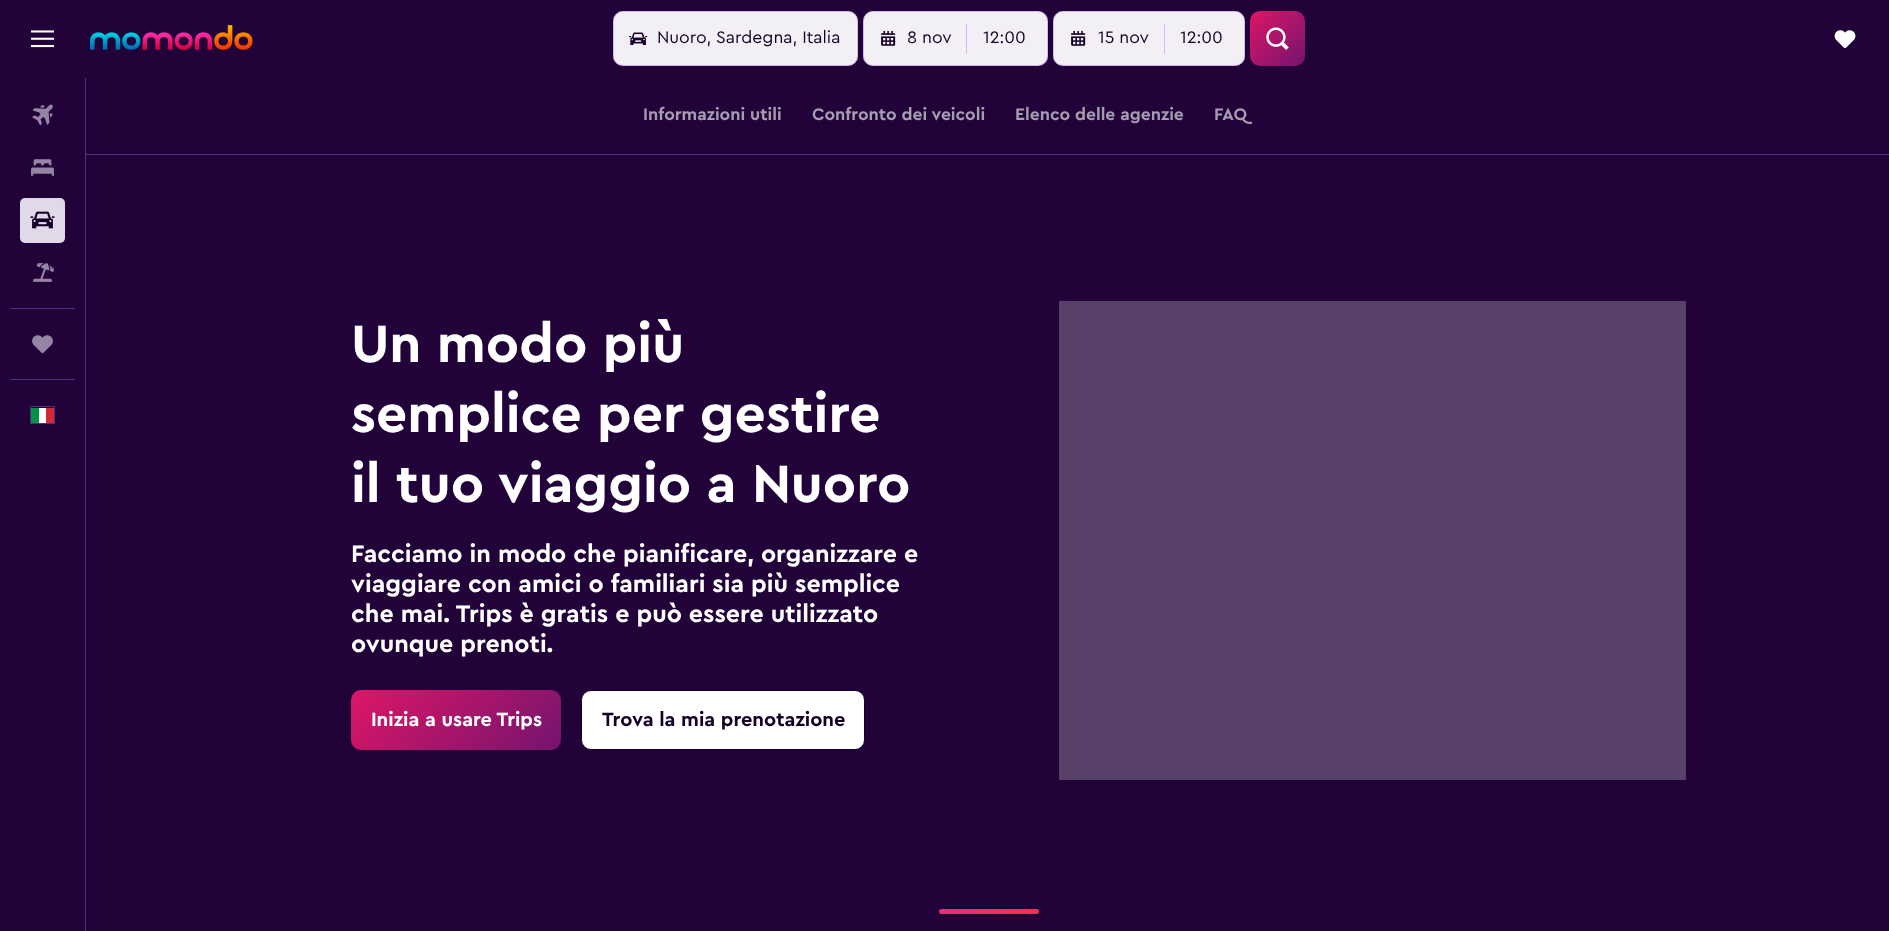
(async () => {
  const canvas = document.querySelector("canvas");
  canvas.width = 1889;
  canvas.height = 931;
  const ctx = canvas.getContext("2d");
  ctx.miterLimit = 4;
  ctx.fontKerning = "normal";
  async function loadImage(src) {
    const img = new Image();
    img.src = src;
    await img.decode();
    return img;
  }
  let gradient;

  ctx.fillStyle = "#21033a";
  ctx.fillRect(0, 0, 1889, 931);
  ctx.drawImage(await loadImage("img/1.png"), 31, 30, 23, 18);
  ctx.drawImage(await loadImage("img/2.png"), 90, 25, 163, 25);
  ctx.fillStyle = "#f3f0f5";
  ctx.beginPath();
  ctx.roundRect(613, 11, 245, 55, 10);
  ctx.fill();
  ctx.beginPath();
  ctx.roundRect(613.5, 11.5, 244, 54, 9.5);
  ctx.strokeStyle = "rgba(167, 98, 234, 0.4)";
  ctx.stroke();
  ctx.drawImage(await loadImage("img/3.png"), 629, 32, 19, 13);
  ctx.beginPath();
  ctx.roundRect(863, 11, 185, 55, 10);
  ctx.fill();
  ctx.beginPath();
  ctx.roundRect(863.5, 11.5, 184, 54, 9.5);
  ctx.stroke();
  ctx.drawImage(await loadImage("img/4.png"), 881, 30, 15, 16);
  ctx.fillStyle = "#d5b7f1";
  ctx.fillRect(966, 24, 1, 30);
  ctx.fillStyle = "#f3f0f5";
  ctx.beginPath();
  ctx.roundRect(1053, 11, 192, 55, 10);
  ctx.fill();
  ctx.beginPath();
  ctx.roundRect(1053.5, 11.5, 191, 54, 9.5);
  ctx.stroke();
  ctx.drawImage(await loadImage("img/4.png"), 1071, 30, 15, 16);
  ctx.fillStyle = "#d5b7f1";
  ctx.fillRect(1164, 24, 1, 30);
  gradient = ctx.createLinearGradient(1250, 11, 1305, 66);
  gradient.addColorStop(0, "#de1666");
  gradient.addColorStop(1, "#73146f");
  ctx.fillStyle = gradient;
  ctx.beginPath();
  ctx.roundRect(1250, 11, 55, 55, 10);
  ctx.fill();
  ctx.drawImage(await loadImage("img/5.png"), 1266, 27, 23, 23);
  ctx.drawImage(await loadImage("img/6.png"), 1834, 30, 22, 19);
  ctx.fillStyle = "#572980";
  ctx.fillRect(85, 78, 1, 853);
  ctx.drawImage(await loadImage("img/7.png"), 32, 104, 21, 22);
  ctx.drawImage(await loadImage("img/8.png"), 31, 159, 23, 17);
  ctx.fillStyle = "#e1d9e8";
  ctx.beginPath();
  ctx.roundRect(20, 198, 45, 45, 5);
  ctx.fill();
  ctx.drawImage(await loadImage("img/9.png"), 30, 211, 25, 18);
  ctx.drawImage(await loadImage("img/10.png"), 33, 263, 21, 19);
  ctx.fillStyle = "#572980";
  ctx.fillRect(10, 308, 65, 1);
  ctx.drawImage(await loadImage("img/11.png"), 32, 335, 21, 19);
  ctx.fillRect(10, 379, 65, 1);
  ctx.strokeStyle = "#572980";
  ctx.strokeRect(30.5, 406.5, 24, 17);
  for (const [x, y, w, h, color] of [
    [31, 408, 8, 15, "#009246"],
    [39, 408, 7, 15, "#ffffff"],
    [46, 408, 8, 15, "#ce2b37"],
    [86, 154, 1803, 1, "#572980"],
  ]) {
    ctx.fillStyle = color;
    ctx.fillRect(x, y, w, h);
  }
  gradient = ctx.createLinearGradient(389, 653, 524, 788);
  gradient.addColorStop(0, "#de1666");
  gradient.addColorStop(1, "#73146f");
  ctx.fillStyle = gradient;
  ctx.beginPath();
  ctx.roundRect(351, 690, 210, 60, 10);
  ctx.fill();
  ctx.fillStyle = "#ffffff";
  ctx.beginPath();
  ctx.roundRect(581.5, 690.5, 283, 59, 9.5);
  ctx.fill();
  ctx.strokeStyle = "#150127";
  ctx.stroke();
  ctx.fillStyle = "#574069";
  ctx.fillRect(1059, 301, 627, 479);
  gradient = ctx.createLinearGradient(963, 885, 1015, 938);
  gradient.addColorStop(0, "#e52e7a");
  gradient.addColorStop(1, "#f23051");
  ctx.fillStyle = gradient;
  ctx.beginPath();
  ctx.roundRect(939, 909, 100, 5, 2.5);
  ctx.fill();
  ctx.font = "17.5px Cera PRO";
  ctx.fillStyle = "#150127";
  for (const [text, x, y] of [
    ["Nuoro, Sardegna, Italia", 657, 43],
    ["8 nov", 907, 43],
    ["12:00", 983, 43],
    ["15 nov", 1098, 43],
    ["12:00", 1180, 43],
  ]) {
    ctx.fillText(text, x, y);
  }
  ctx.font = "bold 17.5px Cera PRO";
  ctx.fillStyle = "#a79bb0";
  for (const [text, x, y] of [
    ["Informazioni utili", 643, 120],
    ["Confronto dei veicoli", 812, 120],
    ["Elenco delle agenzie", 1015, 120],
    ["FAQ", 1214, 120],
  ]) {
    ctx.fillText(text, x, y);
  }
  ctx.font = "bold 55px Cera PRO";
  ctx.fillStyle = "#ffffff";
  for (const [text, x, y] of [
    ["Un modo più", 351, 362],
    ["semplice per gestire", 351, 432],
    ["il tuo viaggio a Nuoro", 351, 502],
  ]) {
    ctx.fillText(text, x, y);
  }
  ctx.font = "bold 25px Cera PRO";
  for (const [text, x, y] of [
    ["Facciamo in modo che pianificare, organizzare e", 351, 562],
    ["viaggiare con amici o familiari sia più semplice", 351, 592],
    ["che mai. Trips è gratis e può essere utilizzato", 351, 622],
    ["ovunque prenoti.", 351, 652],
  ]) {
    ctx.fillText(text, x, y);
  }
  ctx.font = "bold 20px Cera PRO";
  ctx.fillText("Inizia a usare Trips", 371, 726);
  ctx.fillStyle = "#150127";
  ctx.fillText("Trova la mia prenotazione", 602, 726);
})();
